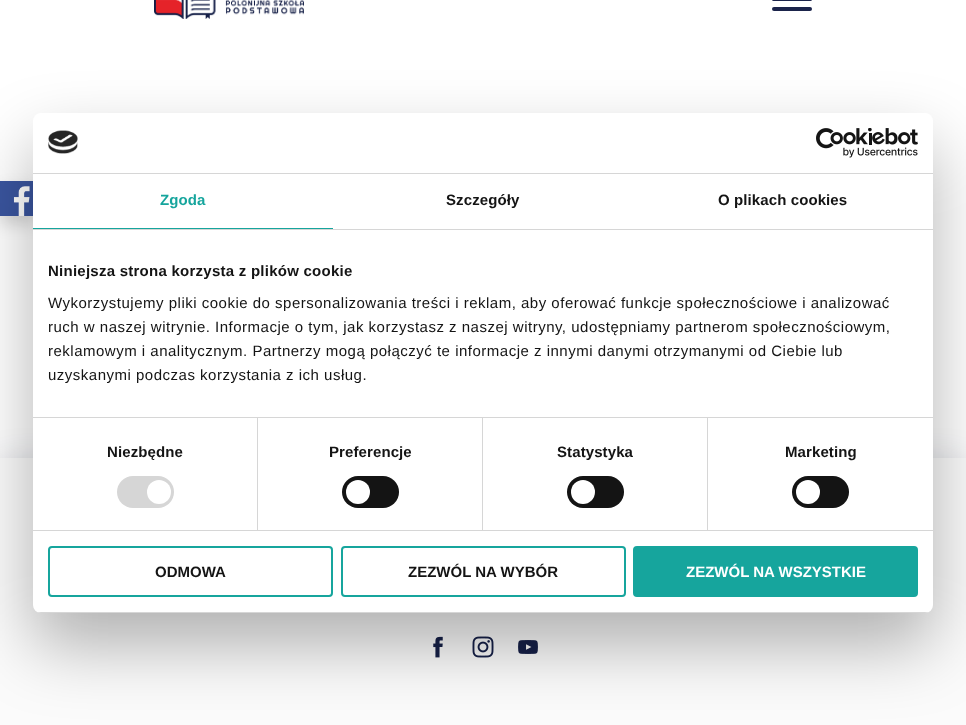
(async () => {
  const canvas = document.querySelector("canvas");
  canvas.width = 966;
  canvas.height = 725;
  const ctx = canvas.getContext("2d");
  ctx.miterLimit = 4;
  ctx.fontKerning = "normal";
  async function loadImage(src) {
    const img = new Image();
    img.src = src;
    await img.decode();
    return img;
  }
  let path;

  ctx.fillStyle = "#ffffff";
  ctx.fillRect(0, 0, 966, 725);
  ctx.drawImage(await loadImage("img/1.png"), 154, 0, 150, 19);
  ctx.fillStyle = "#1b244b";
  ctx.beginPath();
  ctx.roundRect(772, -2, 40, 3, 2);
  ctx.fill();
  ctx.beginPath();
  ctx.roundRect(772, 7, 40, 4, 2);
  ctx.fill();
  ctx.fillStyle = "rgba(20, 30, 70, 0.15)";
  ctx.filter = "blur(15px)";
  ctx.beginPath();
  ctx.rect(0, 458, 966, 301);
  ctx.fill();
  ctx.filter = "none";
  ctx.fillStyle = "#fbfbfb";
  ctx.fillRect(0, 458, 966, 267);
  ctx.drawImage(await loadImage("img/2.png"), 433, 636, 10, 22);
  ctx.drawImage(await loadImage("img/3.png"), 472, 636, 22, 22);
  ctx.drawImage(await loadImage("img/4.png"), 518, 640, 20, 14);
  ctx.save();
  path = new Path2D("M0 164H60V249H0ZM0 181H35V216H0Z");
  ctx.clip(path, "evenodd");
  ctx.fillStyle = "rgba(0, 0, 0, 0.15)";
  ctx.filter = "blur(8px)";
  ctx.beginPath();
  ctx.rect(0, 189, 35, 35);
  ctx.fill();
  ctx.filter = "none";
  ctx.restore();
  ctx.drawImage(await loadImage("img/5.png"), 0, 181, 33, 35);
  ctx.fillStyle = "rgba(0, 0, 0, 0.3)";
  ctx.filter = "blur(34px)";
  ctx.beginPath();
  ctx.roundRect(33, 145, 900, 500, 8);
  ctx.fill();
  ctx.filter = "none";
  ctx.fillStyle = "#ffffff";
  ctx.beginPath();
  ctx.roundRect(33, 113, 900, 500, 8);
  ctx.fill();
  ctx.fillStyle = "#d6d6d6";
  ctx.fillRect(33, 173, 900, 1);
  ctx.drawImage(await loadImage("img/6.png"), 48, 130, 30, 24);
  ctx.drawImage(await loadImage("img/7.png"), 816, 128, 102, 30);
  for (const [x, y, w, h, color] of [
    [33, 229, 900, 1, "#d6d6d6"],
    [33, 228, 300, 1, "#16a59d"],
    [33, 417, 900, 1, "#d6d6d6"],
    [33, 530, 900, 1, "#d6d6d6"],
    [257, 418, 1, 112, "#d6d6d6"],
  ]) {
    ctx.fillStyle = color;
    ctx.fillRect(x, y, w, h);
  }
  ctx.beginPath();
  ctx.roundRect(117, 476, 57, 32, 16);
  ctx.fill();
  ctx.fillStyle = "#ffffff";
  ctx.beginPath();
  ctx.arc(159, 492, 12, 0, Math.PI * 2);
  ctx.fill();
  ctx.fillStyle = "#d6d6d6";
  ctx.fillRect(482, 418, 1, 112);
  ctx.fillStyle = "#141414";
  ctx.beginPath();
  ctx.roundRect(342, 476, 57, 32, 16);
  ctx.fill();
  ctx.fillStyle = "#ffffff";
  ctx.beginPath();
  ctx.arc(358, 492, 12, 0, Math.PI * 2);
  ctx.fill();
  ctx.fillStyle = "#d6d6d6";
  ctx.fillRect(707, 418, 1, 112);
  ctx.fillStyle = "#141414";
  ctx.beginPath();
  ctx.roundRect(567, 476, 57, 32, 16);
  ctx.fill();
  ctx.fillStyle = "#ffffff";
  ctx.beginPath();
  ctx.arc(583, 492, 12, 0, Math.PI * 2);
  ctx.fill();
  ctx.fillStyle = "#141414";
  ctx.beginPath();
  ctx.roundRect(792, 476, 57, 32, 16);
  ctx.fill();
  ctx.fillStyle = "#ffffff";
  ctx.beginPath();
  ctx.arc(808, 492, 12, 0, Math.PI * 2);
  ctx.fill();
  ctx.save();
  ctx.beginPath();
  ctx.roundRect(33, 113, 900, 500, 8);
  ctx.clip();
  ctx.fillStyle = "#d6d6d6";
  ctx.fillRect(33, 612, 900, 1);
  ctx.restore();
  ctx.beginPath();
  ctx.roundRect(49, 547, 283, 49, 3);
  ctx.strokeStyle = "#16a59d";
  ctx.lineWidth = 2;
  ctx.stroke();
  ctx.beginPath();
  ctx.roundRect(342, 547, 283, 49, 3);
  ctx.stroke();
  ctx.fillStyle = "#16a59d";
  ctx.beginPath();
  ctx.roundRect(634, 547, 283, 49, 3);
  ctx.fill();
  ctx.stroke();
  ctx.letterSpacing = "0.1px";
  ctx.font = "bold 15px Liberation Sans";
  ctx.fillText("Zgoda", 160, 205);
  ctx.fillStyle = "#141414";
  ctx.fillText("Szczegóły", 446, 205);
  ctx.fillText("O plikach cookies", 718, 205);
  ctx.letterSpacing = "0.25px";
  ctx.fillText("Niniejsza strona korzysta z plików cookie", 48, 276);
  ctx.letterSpacing = "0.5px";
  ctx.font = "15px Liberation Sans";
  for (const [text, x, y] of [
    ["Wykorzystujemy pliki cookie do spersonalizowania treści i reklam, aby oferować funkcje społecznościowe i analizować", 48, 308],
    ["ruch w naszej witrynie. Informacje o tym, jak korzystasz z naszej witryny, udostępniamy partnerom społecznościowym,", 48, 332],
    ["reklamowym i analitycznym. Partnerzy mogą połączyć te informacje z innymi danymi otrzymanymi od Ciebie lub", 48, 356],
    ["uzyskanymi podczas korzystania z ich usług.", 48, 380],
  ]) {
    ctx.fillText(text, x, y);
  }
  ctx.letterSpacing = "0.1px";
  ctx.font = "bold 15px Liberation Sans";
  for (const [text, x, y] of [
    ["Niezbędne", 107, 457],
    ["Preferencje", 329, 457],
    ["Statystyka", 557, 457],
    ["Marketing", 785, 457],
  ]) {
    ctx.fillText(text, x, y);
  }
  ctx.letterSpacing = "0px";
  ctx.fillText("ODMOWA", 155, 577);
  ctx.fillText("ZEZWÓL NA WYBÓR", 408, 577);
  ctx.fillStyle = "#ffffff";
  ctx.fillText("ZEZWÓL NA WSZYSTKIE", 686, 577);
})();
